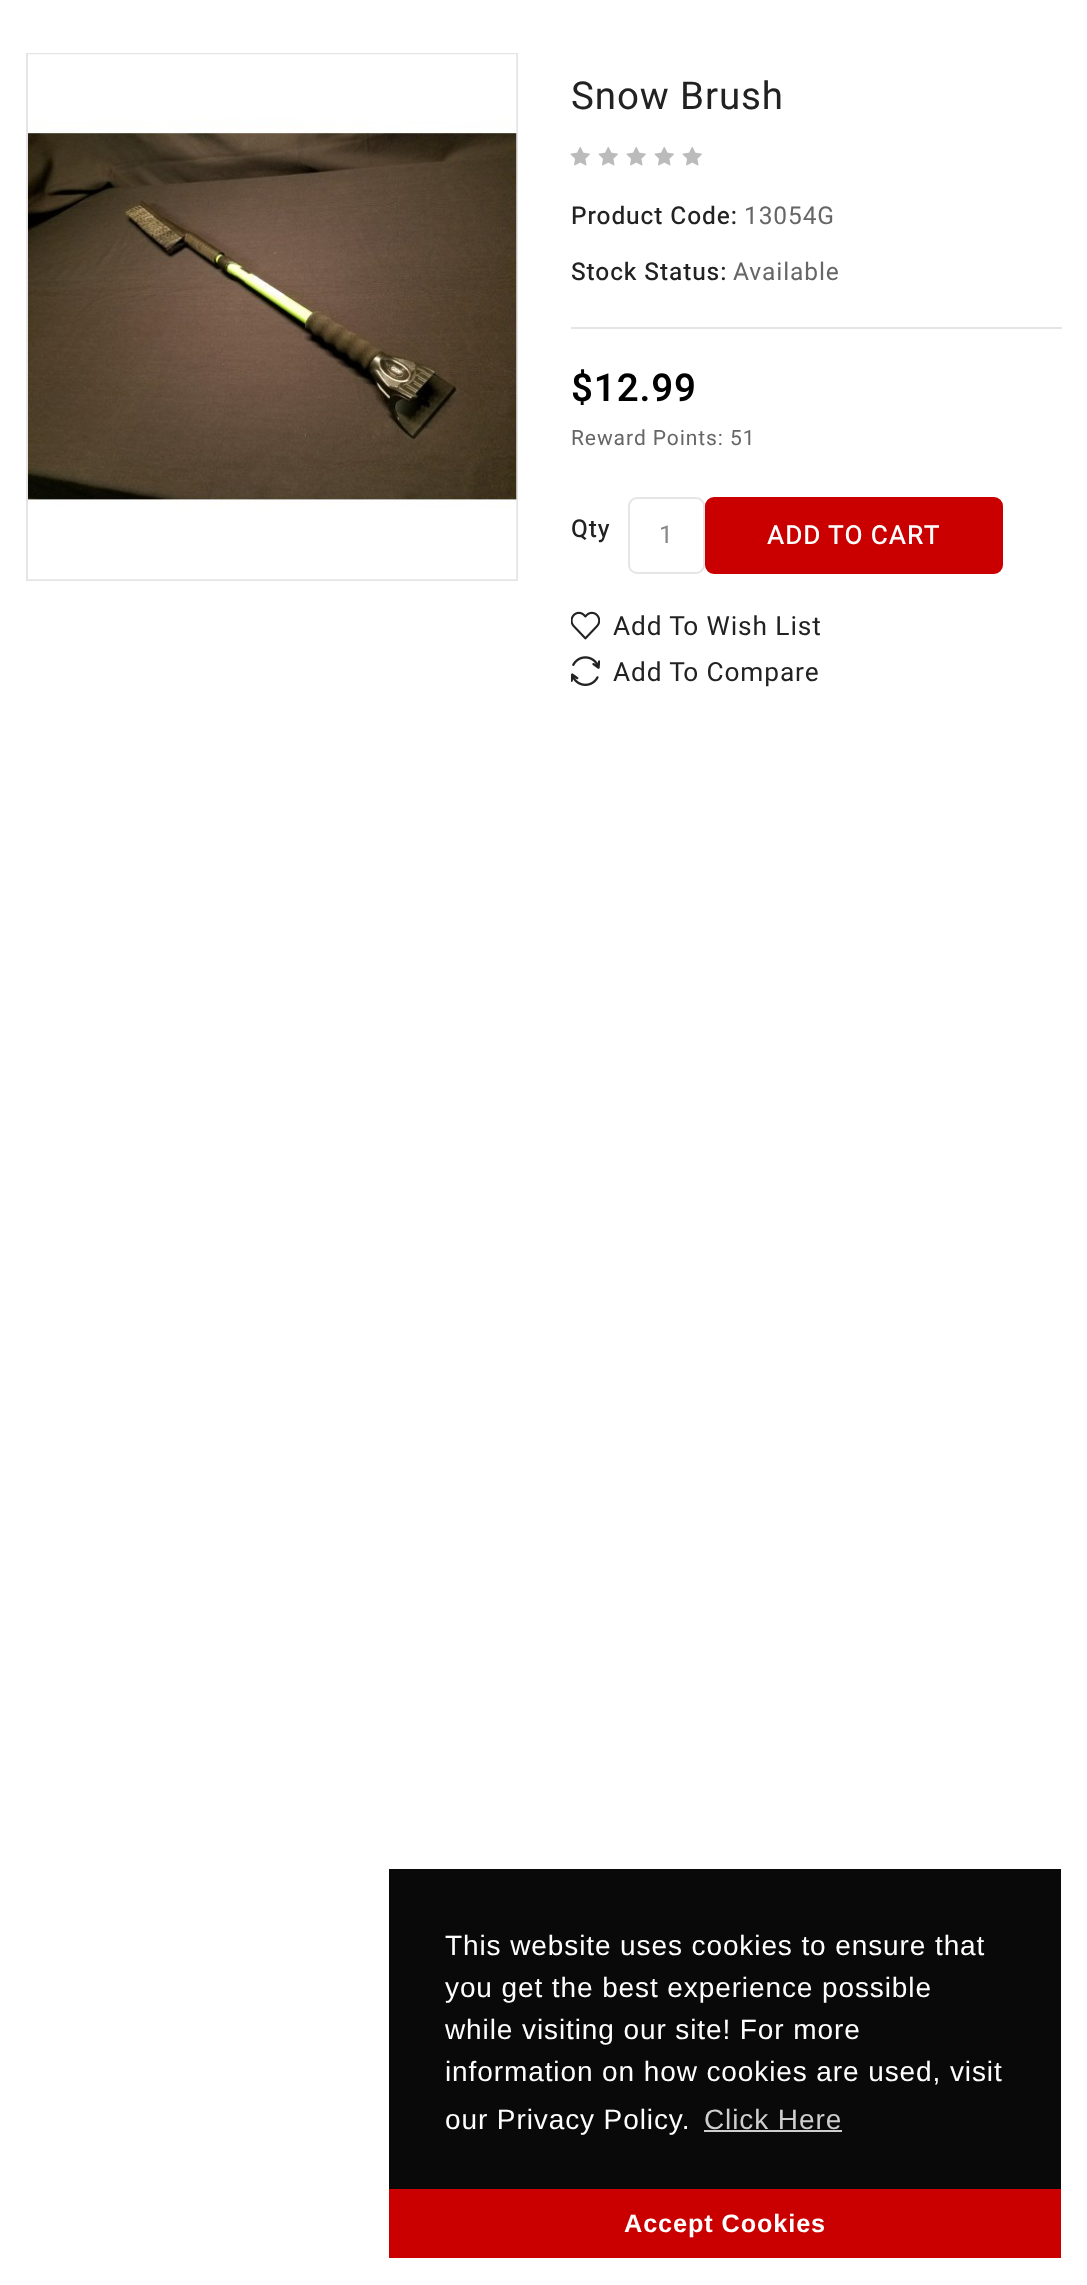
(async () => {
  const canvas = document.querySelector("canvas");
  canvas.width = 1087;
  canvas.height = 2285;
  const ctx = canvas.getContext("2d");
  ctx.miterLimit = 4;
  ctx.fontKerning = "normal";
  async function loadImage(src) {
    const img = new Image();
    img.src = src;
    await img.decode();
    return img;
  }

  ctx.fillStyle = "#ffffff";
  ctx.fillRect(0, 0, 1087, 2285);
  ctx.strokeStyle = "#e5e5e5";
  ctx.lineWidth = 2;
  ctx.strokeRect(27, 54, 490, 526);
  ctx.drawImage(await loadImage("img/1.png"), 28, 54, 489, 526);
  ctx.drawImage(await loadImage("img/2.png"), 570, 147, 20, 19);
  ctx.drawImage(await loadImage("img/2.png"), 598, 147, 20, 19);
  ctx.drawImage(await loadImage("img/2.png"), 626, 147, 20, 19);
  ctx.drawImage(await loadImage("img/2.png"), 654, 147, 20, 19);
  ctx.drawImage(await loadImage("img/2.png"), 682, 147, 20, 19);
  ctx.fillStyle = "#e5e5e5";
  ctx.fillRect(571, 327, 491, 2);
  ctx.beginPath();
  ctx.roundRect(629, 498, 75, 75, 8);
  ctx.stroke();
  ctx.fillStyle = "#ca0000";
  ctx.beginPath();
  ctx.roundRect(706, 498, 296, 75, 8);
  ctx.fill();
  ctx.strokeStyle = "#ca0000";
  ctx.stroke();
  ctx.drawImage(await loadImage("img/3.png"), 571, 611, 29, 29);
  ctx.drawImage(await loadImage("img/4.png"), 571, 656, 29, 30);
  for (const [x, y, w, h, color] of [
    [389, 1869, 672, 320, "#090909"],
    [704, 2130, 138, 2, "#cecece"],
    [389, 2189, 672, 69, "#ca0000"],
  ]) {
    ctx.fillStyle = color;
    ctx.fillRect(x, y, w, h);
  }
  ctx.letterSpacing = "0.9px";
  ctx.font = "38.5px Heebo";
  ctx.fillStyle = "#222222";
  ctx.fillText("Snow Brush", 571, 109);
  ctx.font = "500 24.5px Heebo";
  ctx.fillText("Product Code:", 571, 224);
  ctx.font = "24.5px Heebo";
  ctx.fillStyle = "#666666";
  ctx.fillText("13054G", 744, 224);
  ctx.font = "500 24.5px Heebo";
  ctx.fillStyle = "#222222";
  ctx.fillText("Stock Status:", 571, 280);
  ctx.font = "24.5px Heebo";
  ctx.fillStyle = "#666666";
  ctx.fillText("Available", 733, 280);
  ctx.font = "600 38.5px Heebo";
  ctx.fillStyle = "#000000";
  ctx.fillText("$12.99", 571, 401);
  ctx.font = "21px Heebo";
  ctx.fillStyle = "#666666";
  ctx.fillText("Reward Points: 51", 571, 445);
  ctx.font = "500 24.5px Heebo";
  ctx.fillStyle = "#222222";
  ctx.fillText("Qty", 571, 537);
  ctx.letterSpacing = "0px";
  ctx.font = "24.5px Heebo";
  ctx.fillStyle = "#878787";
  ctx.fillText("1", 659, 543);
  ctx.letterSpacing = "0.9px";
  ctx.font = "500 26.25px Heebo";
  ctx.fillStyle = "#ffffff";
  ctx.fillText("ADD TO CART", 767, 544);
  ctx.font = "26.25px Heebo";
  ctx.fillStyle = "#222222";
  ctx.fillText("Add To Wish List", 613, 635);
  ctx.fillText("Add To Compare", 613, 681);
  ctx.font = "28px Liberation Sans";
  ctx.fillStyle = "#ffffff";
  for (const [text, x, y] of [
    ["This website uses cookies to ensure that", 445, 1955],
    ["you get the best experience possible", 445, 1997],
    ["while visiting our site! For more", 445, 2039],
    ["information on how cookies are used, visit", 445, 2081],
    ["our Privacy Policy.", 445, 2129],
  ]) {
    ctx.fillText(text, x, y);
  }
  ctx.fillStyle = "#cecece";
  ctx.fillText("Click Here", 704, 2129);
  ctx.font = "bold 25.25px Liberation Sans";
  ctx.fillStyle = "#ffffff";
  ctx.fillText("Accept Cookies", 624, 2232);
})();
